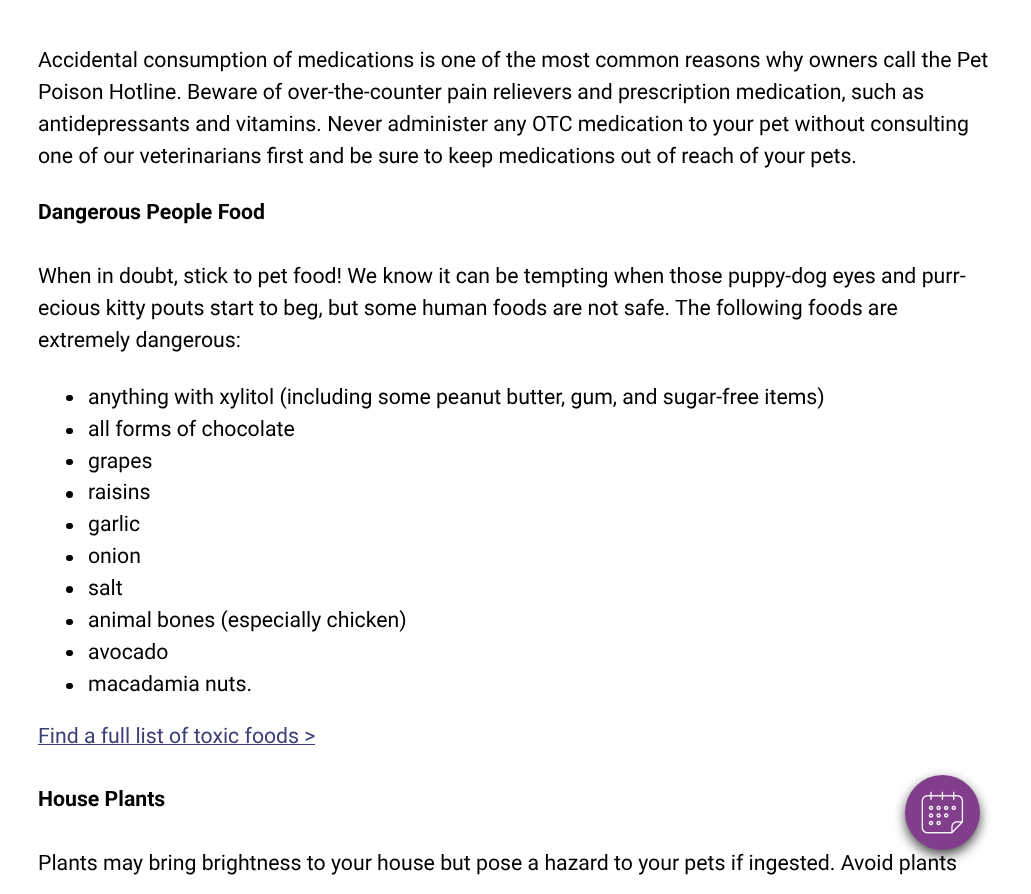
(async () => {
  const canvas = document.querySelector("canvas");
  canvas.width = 1031;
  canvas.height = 894;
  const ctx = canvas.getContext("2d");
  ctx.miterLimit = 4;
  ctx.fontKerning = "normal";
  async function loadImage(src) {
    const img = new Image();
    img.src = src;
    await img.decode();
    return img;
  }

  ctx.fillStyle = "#ffffff";
  ctx.fillRect(0, 0, 1031, 894);
  ctx.fillStyle = "#000000";
  ctx.beginPath();
  ctx.roundRect(66, 395, 7, 6, 3);
  ctx.fill();
  ctx.beginPath();
  ctx.roundRect(66, 428, 7, 6, 3);
  ctx.fill();
  ctx.beginPath();
  ctx.roundRect(66, 459, 7, 6, 3);
  ctx.fill();
  ctx.beginPath();
  ctx.arc(69.5, 494.5, 3.5, 0, Math.PI * 2);
  ctx.fill();
  ctx.beginPath();
  ctx.roundRect(66, 523, 7, 6, 3);
  ctx.fill();
  ctx.beginPath();
  ctx.roundRect(66, 555, 7, 6, 3);
  ctx.fill();
  ctx.beginPath();
  ctx.arc(69.5, 589.5, 3.5, 0, Math.PI * 2);
  ctx.fill();
  ctx.beginPath();
  ctx.roundRect(66, 619, 7, 6, 3);
  ctx.fill();
  ctx.beginPath();
  ctx.roundRect(66, 650, 7, 6, 3);
  ctx.fill();
  ctx.beginPath();
  ctx.roundRect(66, 683, 7, 6, 3);
  ctx.fill();
  ctx.fillStyle = "#3c3e76";
  ctx.fillRect(38, 744, 277, 1);
  ctx.fillStyle = "rgba(0, 0, 0, 0.7)";
  ctx.filter = "blur(6px)";
  ctx.beginPath();
  ctx.roundRect(905, 780, 75, 75, 37.5);
  ctx.fill();
  ctx.filter = "none";
  ctx.fillStyle = "#803e8b";
  ctx.beginPath();
  ctx.arc(942.5, 812.5, 37.5, 0, Math.PI * 2);
  ctx.fill();
  ctx.drawImage(await loadImage("img/1.png"), 921, 791, 43, 43);
  ctx.font = "21.25px Roboto";
  ctx.fillStyle = "#000000";
  for (const [text, x, y] of [
    ["Accidental consumption of medications is one of the most common reasons why owners call the Pet", 38, 67],
    ["Poison Hotline. Beware of over-the-counter pain relievers and prescription medication, such as", 38, 99],
    ["antidepressants and vitamins. Never administer any OTC medication to your pet without consulting", 38, 131],
    ["one of our veterinarians first and be sure to keep medications out of reach of your pets.", 38, 163],
  ]) {
    ctx.fillText(text, x, y);
  }
  ctx.font = "bold 21.25px Roboto";
  ctx.fillText("Dangerous People Food", 38, 219);
  ctx.font = "21.25px Roboto";
  for (const [text, x, y] of [
    ["When in doubt, stick to pet food! We know it can be tempting when those puppy-dog eyes and purr-", 38, 283],
    ["ecious kitty pouts start to beg, but some human foods are not safe. The following foods are", 38, 315],
    ["extremely dangerous:", 38, 347],
    ["anything with xylitol (including some peanut butter, gum, and sugar-free items)", 88, 404],
    ["all forms of chocolate", 88, 436],
    ["grapes", 88, 468],
    ["raisins", 88, 499],
    ["garlic", 88, 531],
    ["onion", 88, 563],
    ["salt", 88, 595],
    ["animal bones (especially chicken)", 88, 627],
    ["avocado", 88, 659],
    ["macadamia nuts.", 88, 691],
  ]) {
    ctx.fillText(text, x, y);
  }
  ctx.fillStyle = "#3c3e76";
  ctx.fillText("Find a full list of toxic foods >", 38, 743);
  ctx.font = "bold 21.25px Roboto";
  ctx.fillStyle = "#000000";
  ctx.fillText("House Plants", 38, 806);
  ctx.font = "21.25px Roboto";
  ctx.fillText("Plants may bring brightness to your house but pose a hazard to your pets if ingested. Avoid plants", 38, 870);
})();
